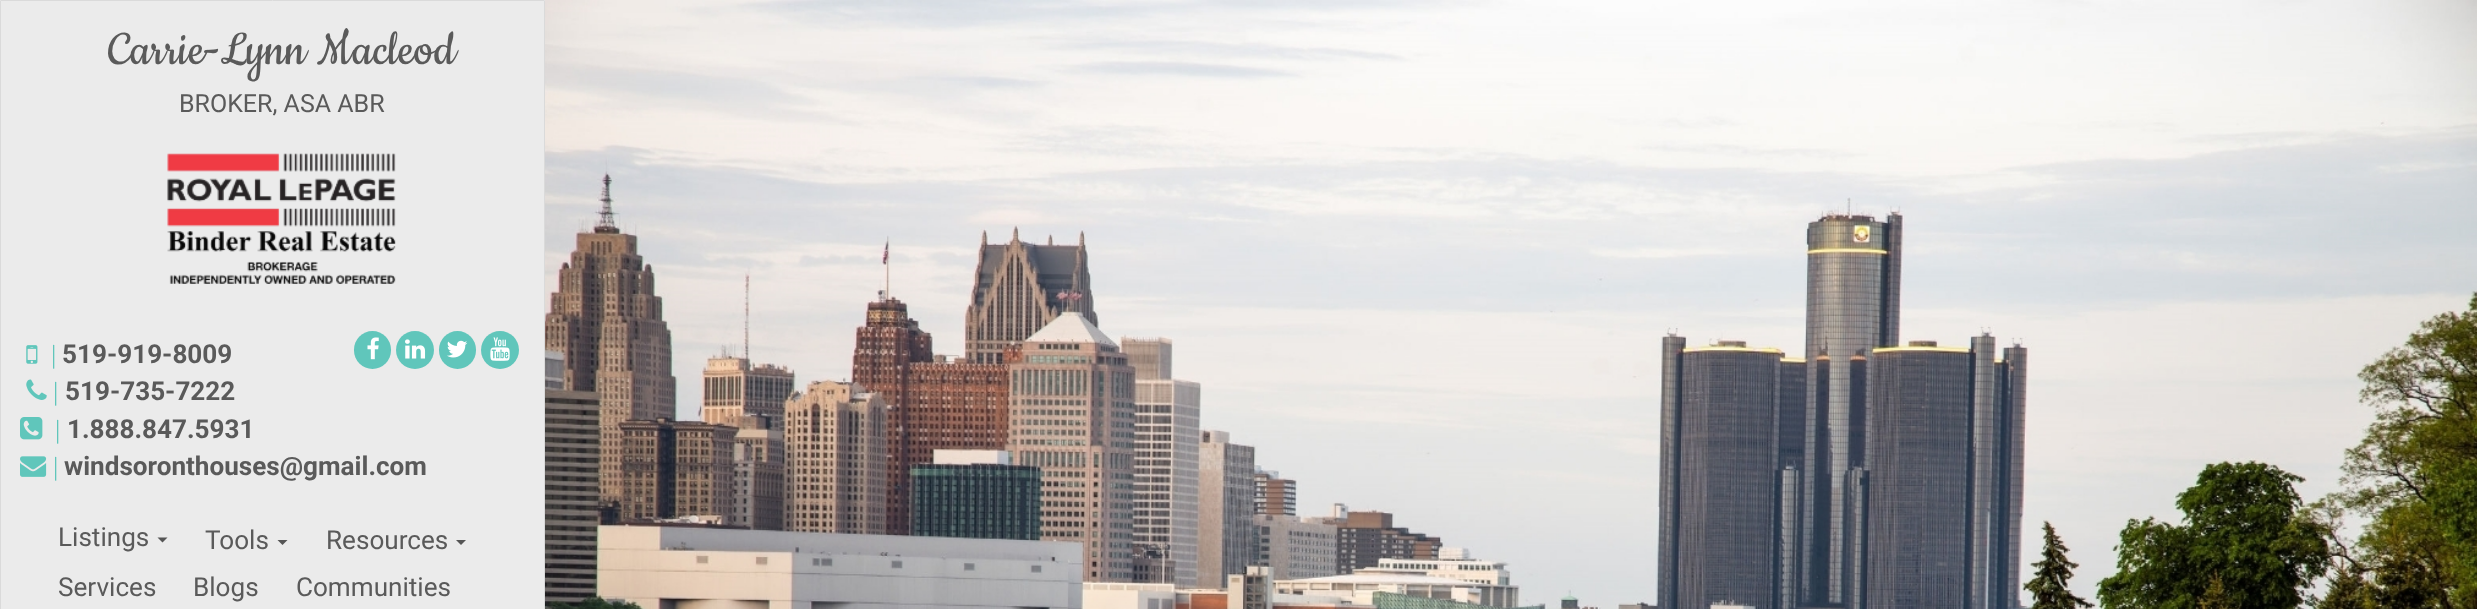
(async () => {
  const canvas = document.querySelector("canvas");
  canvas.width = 2477;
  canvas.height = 609;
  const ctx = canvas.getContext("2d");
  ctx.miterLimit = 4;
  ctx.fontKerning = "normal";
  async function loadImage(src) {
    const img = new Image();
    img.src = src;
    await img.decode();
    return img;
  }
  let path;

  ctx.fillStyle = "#ffffff";
  ctx.fillRect(0, 0, 2477, 609);
  ctx.drawImage(await loadImage("img/1.png"), 545, 0, 1932, 609);
  ctx.fillStyle = "#ebebeb";
  ctx.beginPath();
  ctx.rect(0.5, 0.5, 544, 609);
  ctx.fill();
  ctx.strokeStyle = "#dadada";
  ctx.stroke();
  ctx.drawImage(await loadImage("img/2.png"), 167, 153, 229, 131);
  ctx.drawImage(await loadImage("img/3.png"), 26, 345, 12, 19);
  ctx.fillStyle = "#60c6bb";
  ctx.beginPath();
  ctx.roundRect(354, 331, 37, 38, 18.5);
  ctx.fill();
  ctx.drawImage(await loadImage("img/4.png"), 367, 337, 12, 23);
  ctx.beginPath();
  ctx.arc(415, 350, 19, 0, Math.PI * 2);
  ctx.fill();
  ctx.drawImage(await loadImage("img/5.png"), 405, 339, 21, 20);
  ctx.beginPath();
  ctx.roundRect(439, 331, 37, 38, 18.5);
  ctx.fill();
  ctx.drawImage(await loadImage("img/6.png"), 447, 340, 21, 18);
  ctx.beginPath();
  ctx.arc(500, 350, 19, 0, Math.PI * 2);
  ctx.fill();
  ctx.drawImage(await loadImage("img/7.png"), 490, 337, 20, 24);
  ctx.drawImage(await loadImage("img/8.png"), 26, 379, 21, 21);
  ctx.drawImage(await loadImage("img/9.png"), 20, 417, 23, 23);
  ctx.drawImage(await loadImage("img/10.png"), 20, 456, 27, 21);
  ctx.fillStyle = "#555555";
  path = new Path2D("M157.5 537.5H167.5L162.5 542.5Z");
  ctx.fill(path);
  path = new Path2D("M277.5 540H287.5L282.5 545Z");
  ctx.fill(path);
  path = new Path2D("M456 540H466L461 545Z");
  ctx.fill(path);
  ctx.font = "54.5px Cookie";
  ctx.fillStyle = "#5a5a5a";
  ctx.fillText("Carrie-Lynn Macleod", 108, 64);
  ctx.font = "25px Roboto";
  ctx.fillText("BROKER, ASA ABR", 179, 112);
  ctx.font = "26.1px Liberation Serif";
  ctx.fillStyle = "#60c6bb";
  ctx.fillText("|", 51, 363);
  ctx.font = "bold 26.1px Roboto";
  ctx.fillStyle = "#5a5a5a";
  ctx.fillText("519-919-8009", 62, 363);
  ctx.font = "26.1px Liberation Serif";
  ctx.fillStyle = "#60c6bb";
  ctx.fillText("|", 53, 400);
  ctx.font = "bold 26.1px Roboto";
  ctx.fillStyle = "#5a5a5a";
  ctx.fillText("519-735-7222", 65, 400);
  ctx.font = "26.1px Liberation Serif";
  ctx.fillStyle = "#60c6bb";
  ctx.fillText("|", 55, 438);
  ctx.font = "bold 26.1px Roboto";
  ctx.fillStyle = "#5a5a5a";
  ctx.fillText("1.888.847.5931", 67, 438);
  ctx.font = "26.1px Liberation Serif";
  ctx.fillStyle = "#60c6bb";
  ctx.fillText("|", 53, 475);
  ctx.font = "bold 26.1px Roboto";
  ctx.fillStyle = "#5a5a5a";
  ctx.fillText("windsoronthouses@gmail.com", 64, 475);
  ctx.font = "26.1px Roboto";
  for (const [text, x, y] of [
    ["Listings", 58, 546],
    ["Tools", 205, 549],
    ["Resources", 326, 549],
    ["Services", 58, 596],
    ["Blogs", 193, 596],
    ["Communities", 296, 596],
  ]) {
    ctx.fillText(text, x, y);
  }
})();
